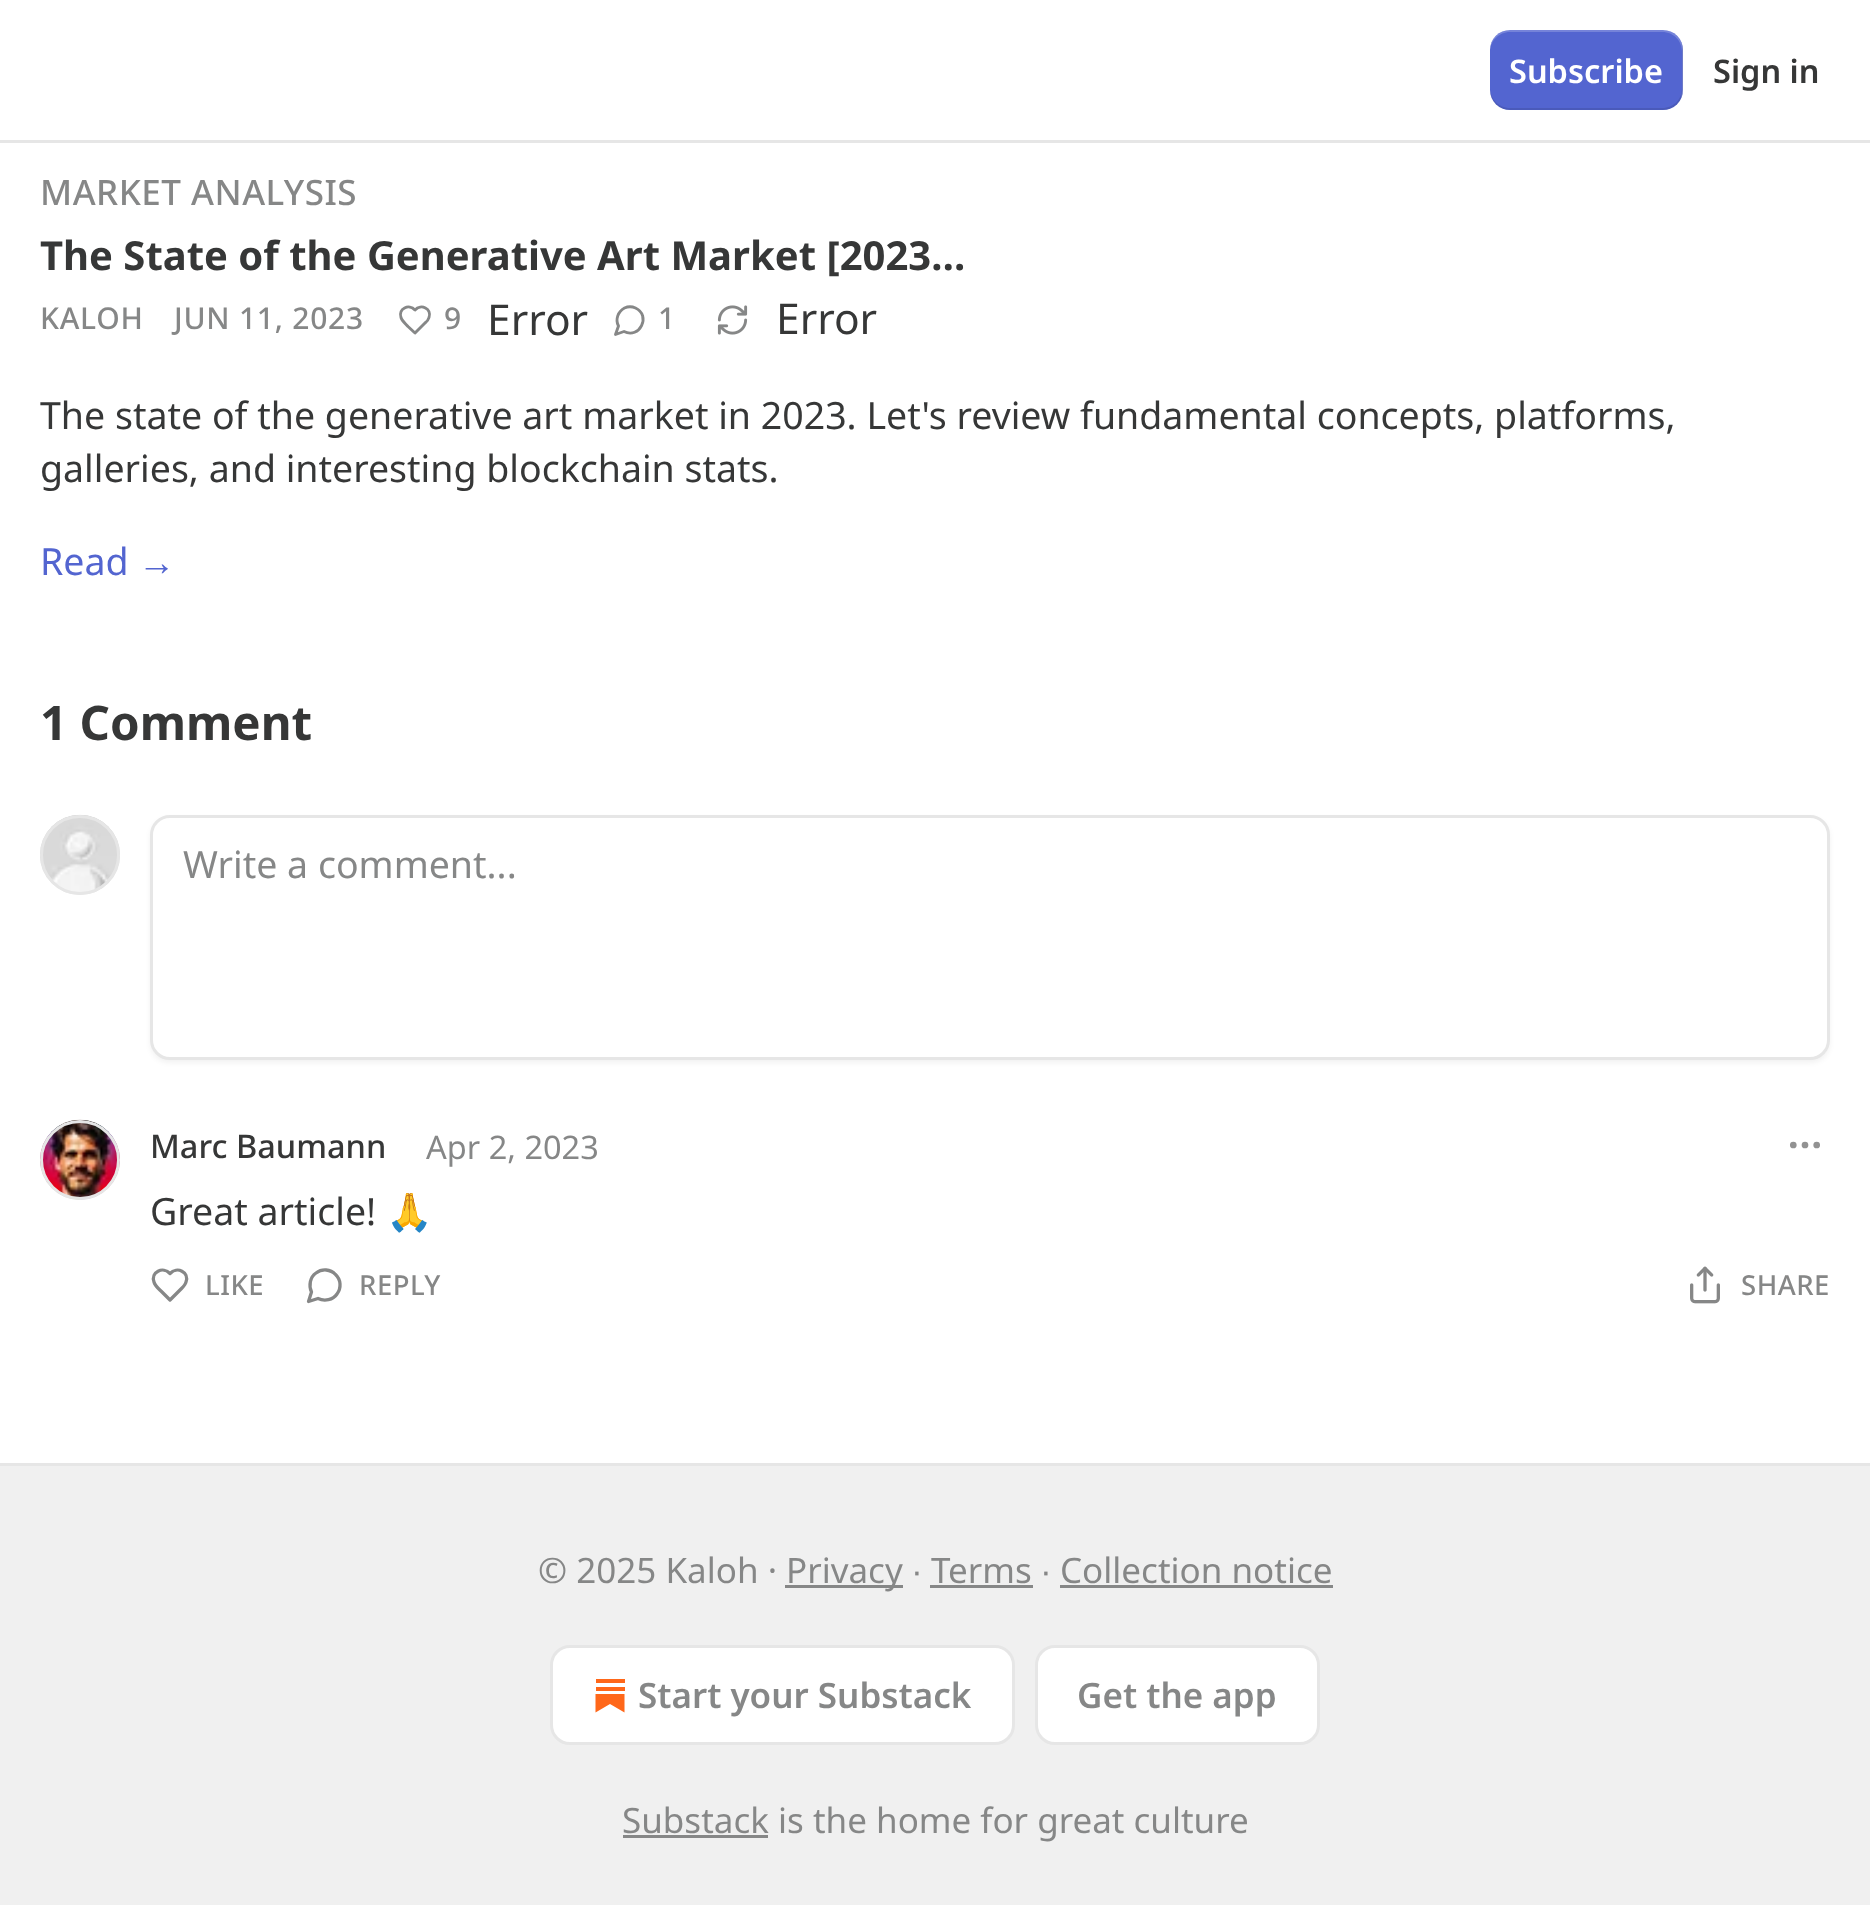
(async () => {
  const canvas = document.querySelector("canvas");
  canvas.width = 1870;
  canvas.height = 1905;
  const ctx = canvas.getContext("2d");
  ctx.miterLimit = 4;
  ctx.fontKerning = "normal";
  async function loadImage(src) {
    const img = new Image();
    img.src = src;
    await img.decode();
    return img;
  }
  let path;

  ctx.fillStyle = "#ffffff";
  ctx.fillRect(0, 0, 1870, 1905);
  ctx.fillStyle = "#e6e6e6";
  ctx.fillRect(0, 140, 1870, 3);
  ctx.fillStyle = "#5365d0";
  ctx.beginPath();
  ctx.roundRect(1490, 30, 193, 80, 20);
  ctx.fill();
  ctx.fillStyle = "rgba(0, 0, 0, 0.1)";
  path = new Path2D("M1490 88V90C1490 101 1499 110 1510 110H1663C1674 110 1683 101 1683 90V50C1683 47 1682 44 1681 42L1682 48V88C1682 99 1674 108 1662 108H1510C1499 108 1490 99 1490 88Z");
  ctx.fill(path);
  ctx.fillStyle = "rgba(255, 255, 255, 0.2)";
  path = new Path2D("M1510 32H1662C1674 32 1682 41 1682 52V92L1681 98C1682 96 1683 93 1683 90V50C1683 39 1674 30 1663 30H1510C1499 30 1490 39 1490 50V52C1490 41 1499 32 1510 32Z");
  ctx.fill(path);
  path = new Path2D("M425 323C427 321.5 428.5 319.5 429 317.5C432 308.5 421 303.5 415 310C409 303.5 398 308.5 401 317.5C402 321 405.5 323.5 408 326.5L415 333Z");
  ctx.strokeStyle = "#868787";
  ctx.lineWidth = 2.9;
  ctx.lineCap = "round";
  ctx.lineJoin = "round";
  ctx.stroke(path);
  path = new Path2D("M624 331.5C639.5 339.5 651.5 315.5 635.5 308C632 306.5 628 306.5 624.5 308C618 311.5 615 319.5 618.5 326L615.5 334.5Z");
  ctx.stroke(path);
  ctx.drawImage(await loadImage("img/1.png"), 717, 305, 31, 30);
  ctx.beginPath();
  ctx.arc(80, 855, 38.5, 0, Math.PI * 2);
  ctx.strokeStyle = "#e6e6e6";
  ctx.lineWidth = 3;
  ctx.stroke();
  ctx.drawImage(await loadImage("img/2.png"), 40, 814, 80, 80);
  ctx.beginPath();
  ctx.arc(80, 855, 38.5, 0, Math.PI * 2);
  ctx.stroke();
  ctx.fillStyle = "rgba(0, 0, 0, 0.05)";
  ctx.filter = "blur(2.5px)";
  ctx.beginPath();
  ctx.roundRect(150, 818, 1680, 245, 20);
  ctx.fill();
  ctx.filter = "none";
  ctx.fillStyle = "#ffffff";
  ctx.beginPath();
  ctx.roundRect(151.5, 816.5, 1677, 242, 18.5);
  ctx.fill();
  ctx.lineJoin = "miter";
  ctx.stroke();
  ctx.beginPath();
  ctx.arc(80, 1160, 38.5, 0, Math.PI * 2);
  ctx.stroke();
  ctx.drawImage(await loadImage("img/3.png"), 40, 1119, 80, 81);
  ctx.beginPath();
  ctx.arc(80, 1160, 38.5, 0, Math.PI * 2);
  ctx.stroke();
  ctx.beginPath();
  ctx.arc(1805, 1145, 1.7, 0, Math.PI * 2);
  ctx.strokeStyle = "#929292";
  ctx.lineWidth = 3.3;
  ctx.stroke();
  ctx.beginPath();
  ctx.arc(1816.7, 1145, 1.7, 0, Math.PI * 2);
  ctx.stroke();
  ctx.beginPath();
  ctx.arc(1793.3, 1145, 1.7, 0, Math.PI * 2);
  ctx.stroke();
  path = new Path2D("M181.5 1288.5C183.5 1286.5 185.5 1284.5 186 1282C189.5 1272 177 1266 170 1273.5C163 1266 150.5 1272 154 1282C155 1286 159 1289 162 1292L170 1300Z");
  ctx.strokeStyle = "#868787";
  ctx.lineJoin = "round";
  ctx.stroke(path);
  path = new Path2D("M318 1298.5C324.5 1301.5 333 1300 337 1294C341.5 1288 341 1279.5 335.5 1274.5C330.5 1269 322 1268.5 316 1273C310 1277 308.5 1285.5 311.5 1292L308.5 1301.5Z");
  ctx.stroke(path);
  ctx.drawImage(await loadImage("img/4.png"), 1690, 1266, 30, 38);
  for (const [x, y, w, h, color] of [
    [0, 1466, 1870, 439, "#f0f0f0"],
    [0, 1463, 1870, 3, "#e6e6e6"],
    [785, 1585, 118, 3, "#868787"],
    [930, 1585, 103, 3, "#868787"],
    [1060, 1585, 273, 3, "#868787"],
  ]) {
    ctx.fillStyle = color;
    ctx.fillRect(x, y, w, h);
  }
  ctx.fillStyle = "#ffffff";
  ctx.beginPath();
  ctx.roundRect(551.5, 1646.5, 462, 97, 18.5);
  ctx.fill();
  ctx.strokeStyle = "#e6e6e6";
  ctx.lineWidth = 3;
  ctx.lineJoin = "miter";
  ctx.stroke();
  ctx.fillStyle = "#ff6719";
  ctx.fillRect(596, 1687, 29, 4);
  path = new Path2D("M595.5 1694V1712.5L610 1704L624.5 1712.5V1694Z");
  ctx.fill(path);
  ctx.fillRect(596, 1679, 29, 4);
  ctx.fillStyle = "#ffffff";
  ctx.beginPath();
  ctx.roundRect(1036.5, 1646.5, 282, 97, 18.5);
  ctx.fill();
  ctx.stroke();
  ctx.fillStyle = "#868787";
  ctx.fillRect(623, 1835, 145, 3);
  ctx.font = "600 32.5px Noto Sans";
  ctx.fillStyle = "#ffffff";
  ctx.fillText("Subscribe", 1509, 83);
  ctx.fillStyle = "#363737";
  ctx.fillText("Sign in", 1713, 83);
  ctx.letterSpacing = "0.5px";
  ctx.font = "500 35px Noto Sans";
  ctx.fillStyle = "#868787";
  ctx.fillText("MARKET ANALYSIS", 40, 205);
  ctx.letterSpacing = "0px";
  ctx.font = "bold 40px Noto Sans";
  ctx.fillStyle = "#363737";
  ctx.fillText("The State of the Generative Art Market [2023…", 40, 270);
  ctx.letterSpacing = "0.75px";
  ctx.font = "500 30px Noto Sans";
  ctx.fillStyle = "#868787";
  for (const [text, x, y] of [
    ["KALOH", 40, 329],
    ["JUN 11, 2023", 174, 329],
    ["9", 444, 329],
  ]) {
    ctx.fillText(text, x, y);
  }
  ctx.letterSpacing = "0px";
  ctx.font = "42.5px Noto Sans";
  ctx.fillStyle = "#363737";
  ctx.fillText("Error", 487, 335);
  ctx.letterSpacing = "0.75px";
  ctx.font = "500 30px Noto Sans";
  ctx.fillStyle = "#868787";
  ctx.fillText("1", 658, 329);
  ctx.letterSpacing = "0px";
  ctx.font = "42.5px Noto Sans";
  ctx.fillStyle = "#363737";
  ctx.fillText("Error", 776, 334);
  ctx.font = "37.5px Noto Sans";
  ctx.fillText("The state of the generative art market in 2023. Let's review fundamental concepts, platforms,", 40, 429);
  ctx.fillText("galleries, and interesting blockchain stats.", 40, 482);
  ctx.fillStyle = "#5365d0";
  ctx.fillText("Read", 40, 575);
  ctx.font = "37.5px Liberation Sans";
  ctx.fillText("→", 138, 575);
  ctx.font = "bold 47.5px Noto Sans";
  ctx.fillStyle = "#363737";
  ctx.fillText("1 Comment", 40, 740);
  ctx.font = "37.5px Noto Sans";
  ctx.fillStyle = "#868787";
  ctx.fillText("Write a comment...", 183, 878);
  ctx.font = "500 32.5px Noto Sans";
  ctx.fillStyle = "#363737";
  ctx.fillText("Marc Baumann", 150, 1158);
  ctx.font = "32.5px Noto Sans";
  ctx.fillStyle = "#868787";
  ctx.fillText("Apr 2, 2023", 426, 1159);
  ctx.font = "37.5px Noto Sans";
  ctx.fillStyle = "#363737";
  ctx.fillText("Great article!", 150, 1225);
  ctx.font = "37.5px Noto Color Emoji";
  ctx.fillText("🙏", 386, 1225);
  ctx.letterSpacing = "0.5px";
  ctx.font = "500 27.5px Noto Sans";
  ctx.fillStyle = "#868787";
  for (const [text, x, y] of [
    ["LIKE", 205, 1295],
    ["REPLY", 359, 1295],
    ["SHARE", 1741, 1295],
  ]) {
    ctx.fillText(text, x, y);
  }
  ctx.letterSpacing = "0px";
  ctx.font = "35px Noto Sans";
  ctx.fillText("© 2025 Kaloh ·", 538, 1583);
  ctx.fillText("Privacy", 786, 1583);
  ctx.font = "35px Liberation Sans";
  ctx.fillText("∙", 912, 1583);
  ctx.font = "35px Noto Sans";
  ctx.fillText("Terms", 931, 1583);
  ctx.font = "35px Liberation Sans";
  ctx.fillText("∙", 1041, 1583);
  ctx.font = "35px Noto Sans";
  ctx.fillText("Collection notice", 1060, 1583);
  ctx.font = "600 35px Noto Sans";
  ctx.fillText("Start your Substack", 638, 1708);
  ctx.fillText("Get the app", 1077, 1708);
  ctx.font = "35px Noto Sans";
  ctx.fillText("Substack is the home for great culture", 622, 1833);
})();
